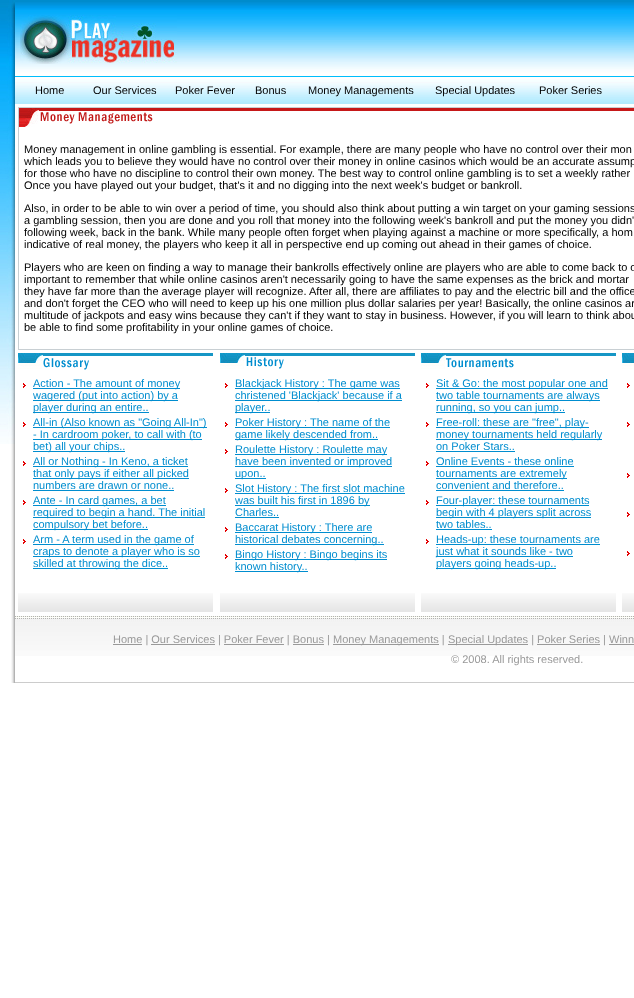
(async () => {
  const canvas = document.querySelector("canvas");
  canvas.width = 634;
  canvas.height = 998;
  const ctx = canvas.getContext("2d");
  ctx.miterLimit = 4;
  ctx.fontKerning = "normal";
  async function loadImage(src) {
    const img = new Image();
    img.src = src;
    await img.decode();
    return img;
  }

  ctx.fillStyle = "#ffffff";
  ctx.fillRect(0, 0, 634, 998);
  ctx.drawImage(await loadImage("img/1.png"), 15, 0, 619, 2);
  ctx.drawImage(await loadImage("img/2.png"), 0, 444, 15, 239);
  ctx.drawImage(await loadImage("img/3.png"), 0, 0, 15, 444);
  ctx.drawImage(await loadImage("img/4.png"), 15, 2, 619, 74);
  ctx.drawImage(await loadImage("img/5.png"), 20, 15, 157, 49);
  ctx.drawImage(await loadImage("img/6.png"), 15, 76, 619, 28);
  ctx.strokeStyle = "#c8cfd3";
  ctx.strokeRect(18.5, 107.5, 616, 242);
  ctx.drawImage(await loadImage("img/7.png"), 19, 108, 20, 19);
  ctx.fillStyle = "#c61819";
  ctx.fillRect(39, 108, 595, 3);
  ctx.drawImage(await loadImage("img/8.png"), 40, 112, 113, 12);
  ctx.drawImage(await loadImage("img/9.png"), 18, 353, 25, 16);
  ctx.fillStyle = "#1696c5";
  ctx.fillRect(43, 353, 170, 3);
  ctx.drawImage(await loadImage("img/10.png"), 43, 358, 46, 12);
  ctx.drawImage(await loadImage("img/11.png"), 18, 593, 195, 19);
  ctx.drawImage(await loadImage("img/12.png"), 23, 383, 3, 5);
  for (const [x, y, w, h, color] of [
    [33, 388, 147, 1, "#008dcf"],
    [33, 400, 145, 1, "#008dcf"],
    [33, 412, 116, 1, "#008dcf"],
  ]) {
    ctx.fillStyle = color;
    ctx.fillRect(x, y, w, h);
  }
  ctx.drawImage(await loadImage("img/12.png"), 23, 422, 3, 5);
  for (const [x, y, w, h, color] of [
    [33, 427, 174, 1, "#008dcf"],
    [33, 439, 169, 1, "#008dcf"],
    [33, 451, 92, 1, "#008dcf"],
  ]) {
    ctx.fillStyle = color;
    ctx.fillRect(x, y, w, h);
  }
  ctx.drawImage(await loadImage("img/12.png"), 23, 461, 3, 5);
  for (const [x, y, w, h, color] of [
    [33, 466, 155, 1, "#008dcf"],
    [33, 478, 156, 1, "#008dcf"],
    [33, 490, 141, 1, "#008dcf"],
  ]) {
    ctx.fillStyle = color;
    ctx.fillRect(x, y, w, h);
  }
  ctx.drawImage(await loadImage("img/12.png"), 23, 500, 3, 5);
  for (const [x, y, w, h, color] of [
    [33, 505, 133, 1, "#008dcf"],
    [33, 517, 172, 1, "#008dcf"],
    [33, 529, 115, 1, "#008dcf"],
  ]) {
    ctx.fillStyle = color;
    ctx.fillRect(x, y, w, h);
  }
  ctx.drawImage(await loadImage("img/12.png"), 23, 539, 3, 5);
  for (const [x, y, w, h, color] of [
    [33, 544, 161, 1, "#008dcf"],
    [33, 556, 167, 1, "#008dcf"],
    [33, 568, 135, 1, "#008dcf"],
  ]) {
    ctx.fillStyle = color;
    ctx.fillRect(x, y, w, h);
  }
  ctx.drawImage(await loadImage("img/9.png"), 220, 353, 25, 16);
  ctx.fillStyle = "#1696c5";
  ctx.fillRect(245, 353, 170, 3);
  ctx.drawImage(await loadImage("img/13.png"), 246, 357, 38, 12);
  ctx.drawImage(await loadImage("img/11.png"), 220, 593, 195, 19);
  ctx.drawImage(await loadImage("img/12.png"), 225, 383, 3, 5);
  for (const [x, y, w, h, color] of [
    [235, 388, 165, 1, "#008dcf"],
    [235, 400, 167, 1, "#008dcf"],
    [235, 412, 35, 1, "#008dcf"],
  ]) {
    ctx.fillStyle = color;
    ctx.fillRect(x, y, w, h);
  }
  ctx.drawImage(await loadImage("img/12.png"), 225, 422, 3, 5);
  ctx.fillRect(235, 427, 155, 1);
  ctx.fillRect(235, 439, 143, 1);
  ctx.drawImage(await loadImage("img/12.png"), 225, 449, 3, 5);
  for (const [x, y, w, h, color] of [
    [235, 454, 152, 1, "#008dcf"],
    [235, 466, 157, 1, "#008dcf"],
    [235, 478, 31, 1, "#008dcf"],
  ]) {
    ctx.fillStyle = color;
    ctx.fillRect(x, y, w, h);
  }
  ctx.drawImage(await loadImage("img/12.png"), 225, 488, 3, 5);
  for (const [x, y, w, h, color] of [
    [235, 493, 170, 1, "#008dcf"],
    [235, 505, 135, 1, "#008dcf"],
    [235, 517, 44, 1, "#008dcf"],
  ]) {
    ctx.fillStyle = color;
    ctx.fillRect(x, y, w, h);
  }
  ctx.drawImage(await loadImage("img/12.png"), 225, 527, 3, 5);
  ctx.fillRect(235, 532, 137, 1);
  ctx.fillRect(235, 544, 149, 1);
  ctx.drawImage(await loadImage("img/12.png"), 225, 554, 3, 5);
  ctx.fillRect(235, 559, 152, 1);
  ctx.fillRect(235, 571, 73, 1);
  ctx.drawImage(await loadImage("img/9.png"), 421, 353, 25, 16);
  ctx.fillStyle = "#1696c5";
  ctx.fillRect(446, 353, 170, 3);
  ctx.drawImage(await loadImage("img/14.png"), 446, 358, 68, 10);
  ctx.drawImage(await loadImage("img/11.png"), 421, 593, 195, 19);
  ctx.drawImage(await loadImage("img/12.png"), 426, 383, 3, 5);
  for (const [x, y, w, h, color] of [
    [436, 388, 172, 1, "#008dcf"],
    [436, 400, 164, 1, "#008dcf"],
    [436, 412, 129, 1, "#008dcf"],
  ]) {
    ctx.fillStyle = color;
    ctx.fillRect(x, y, w, h);
  }
  ctx.drawImage(await loadImage("img/12.png"), 426, 422, 3, 5);
  for (const [x, y, w, h, color] of [
    [436, 427, 153, 1, "#008dcf"],
    [436, 439, 166, 1, "#008dcf"],
    [436, 451, 79, 1, "#008dcf"],
  ]) {
    ctx.fillStyle = color;
    ctx.fillRect(x, y, w, h);
  }
  ctx.drawImage(await loadImage("img/12.png"), 426, 461, 3, 5);
  for (const [x, y, w, h, color] of [
    [436, 466, 138, 1, "#008dcf"],
    [436, 478, 131, 1, "#008dcf"],
    [436, 490, 128, 1, "#008dcf"],
  ]) {
    ctx.fillStyle = color;
    ctx.fillRect(x, y, w, h);
  }
  ctx.drawImage(await loadImage("img/12.png"), 426, 500, 3, 5);
  for (const [x, y, w, h, color] of [
    [436, 505, 153, 1, "#008dcf"],
    [436, 517, 155, 1, "#008dcf"],
    [436, 529, 56, 1, "#008dcf"],
  ]) {
    ctx.fillStyle = color;
    ctx.fillRect(x, y, w, h);
  }
  ctx.drawImage(await loadImage("img/12.png"), 426, 539, 3, 5);
  for (const [x, y, w, h, color] of [
    [436, 544, 164, 1, "#008dcf"],
    [436, 556, 137, 1, "#008dcf"],
    [436, 568, 120, 1, "#008dcf"],
  ]) {
    ctx.fillStyle = color;
    ctx.fillRect(x, y, w, h);
  }
  ctx.drawImage(await loadImage("img/15.png"), 622, 353, 12, 16);
  ctx.drawImage(await loadImage("img/16.png"), 622, 593, 12, 19);
  ctx.drawImage(await loadImage("img/12.png"), 627, 383, 3, 5);
  ctx.drawImage(await loadImage("img/12.png"), 627, 422, 3, 5);
  ctx.drawImage(await loadImage("img/12.png"), 627, 473, 3, 5);
  ctx.drawImage(await loadImage("img/12.png"), 627, 512, 3, 5);
  ctx.drawImage(await loadImage("img/12.png"), 627, 551, 3, 5);
  ctx.drawImage(await loadImage("img/17.png"), 15, 616, 619, 40);
  for (const [x, y, w, h, color] of [
    [15, 682, 619, 1, "#cccccc"],
    [113, 644, 29, 1, "#999999"],
    [333, 644, 106, 1, "#999999"],
    [448, 644, 80, 1, "#999999"],
    [151, 644, 64, 1, "#999999"],
    [224, 644, 60, 1, "#999999"],
    [293, 644, 31, 1, "#999999"],
    [537, 644, 63, 1, "#999999"],
    [609, 644, 25, 1, "#999999"],
  ]) {
    ctx.fillStyle = color;
    ctx.fillRect(x, y, w, h);
  }
  ctx.font = "11px Liberation Sans";
  ctx.fillStyle = "#000000";
  for (const [text, x, y] of [
    ["Home", 35, 94],
    ["Our Services", 93, 94],
    ["Poker Fever", 175, 94],
    ["Bonus", 255, 94],
    ["Money Managements", 308, 94],
    ["Special Updates", 435, 94],
    ["Poker Series", 539, 94],
    ["Money management in online gambling is essential. For example, there are many people who have no control over their mon", 24, 153],
    ["which leads you to believe they would have no control over their money in online casinos which would be an accurate assump", 24, 165],
    ["for those who have no discipline to control their own money. The best way to control online gambling is to set a weekly rather", 24, 177],
    ["Once you have played out your budget, that's it and no digging into the next week's budget or bankroll.", 24, 189],
    ["Also, in order to be able to win over a period of time, you should also think about putting a win target on your gaming sessions", 24, 212],
    ["a gambling session, then you are done and you roll that money into the following week's bankroll and put the money you didn'", 24, 224],
    ["following week, back in the bank. While many people often forget when playing against a machine or more specifically, a hom", 24, 236],
    ["indicative of real money, the players who keep it all in perspective end up coming out ahead in their games of choice.", 24, 248],
    ["Players who are keen on finding a way to manage their bankrolls effectively online are players who are able to come back to o", 24, 271],
    ["important to remember that while online casinos aren't necessarily going to have the same expenses as the brick and mortar", 24, 283],
    ["they have far more than the average player will recognize. After all, there are affiliates to pay and the electric bill and the office", 24, 295],
    ["and don't forget the CEO who will need to keep up his one million plus dollar salaries per year! Basically, the online casinos ar", 24, 307],
    ["multitude of jackpots and easy wins because they can't if they want to stay in business. However, if you will learn to think abou", 24, 319],
    ["be able to find some profitability in your online games of choice.", 24, 331],
  ]) {
    ctx.fillText(text, x, y);
  }
  ctx.fillStyle = "#008dcf";
  for (const [text, x, y] of [
    ["Action - The amount of money", 33, 387],
    ["wagered (put into action) by a", 33, 399],
    ["player during an entire..", 33, 411],
    ["All-in (Also known as \"Going All-In\")", 33, 426],
    ["- In cardroom poker, to call with (to", 33, 438],
    ["bet) all your chips..", 33, 450],
    ["All or Nothing - In Keno, a ticket", 33, 465],
    ["that only pays if either all picked", 33, 477],
    ["numbers are drawn or none..", 33, 489],
    ["Ante - In card games, a bet", 33, 504],
    ["required to begin a hand. The initial", 33, 516],
    ["compulsory bet before..", 33, 528],
    ["Arm - A term used in the game of", 33, 543],
    ["craps to denote a player who is so", 33, 555],
    ["skilled at throwing the dice..", 33, 567],
    ["Blackjack History : The game was", 235, 387],
    ["christened 'Blackjack' because if a", 235, 399],
    ["player..", 235, 411],
    ["Poker History : The name of the", 235, 426],
    ["game likely descended from..", 235, 438],
    ["Roulette History : Roulette may", 235, 453],
    ["have been invented or improved", 235, 465],
    ["upon..", 235, 477],
    ["Slot History : The first slot machine", 235, 492],
    ["was built his first in 1896 by", 235, 504],
    ["Charles..", 235, 516],
    ["Baccarat History : There are", 235, 531],
    ["historical debates concerning..", 235, 543],
    ["Bingo History : Bingo begins its", 235, 558],
    ["known history..", 235, 570],
    ["Sit & Go: the most popular one and", 436, 387],
    ["two table tournaments are always", 436, 399],
    ["running, so you can jump..", 436, 411],
    ["Free-roll: these are \"free\", play-", 436, 426],
    ["money tournaments held regularly", 436, 438],
    ["on Poker Stars..", 436, 450],
    ["Online Events - these online", 436, 465],
    ["tournaments are extremely", 436, 477],
    ["convenient and therefore..", 436, 489],
    ["Four-player: these tournaments", 436, 504],
    ["begin with 4 players split across", 436, 516],
    ["two tables..", 436, 528],
    ["Heads-up: these tournaments are", 436, 543],
    ["just what it sounds like - two", 436, 555],
    ["players going heads-up..", 436, 567],
  ]) {
    ctx.fillText(text, x, y);
  }
  ctx.fillStyle = "#999999";
  for (const [text, x, y] of [
    ["Home | Our Services | Poker Fever | Bonus |", 113, 643],
    ["Money Managements |", 333, 643],
    ["Special Updates | Poker Series | Winn", 448, 643],
    ["© 2008. All rights reserved.", 451, 663],
  ]) {
    ctx.fillText(text, x, y);
  }
})();
